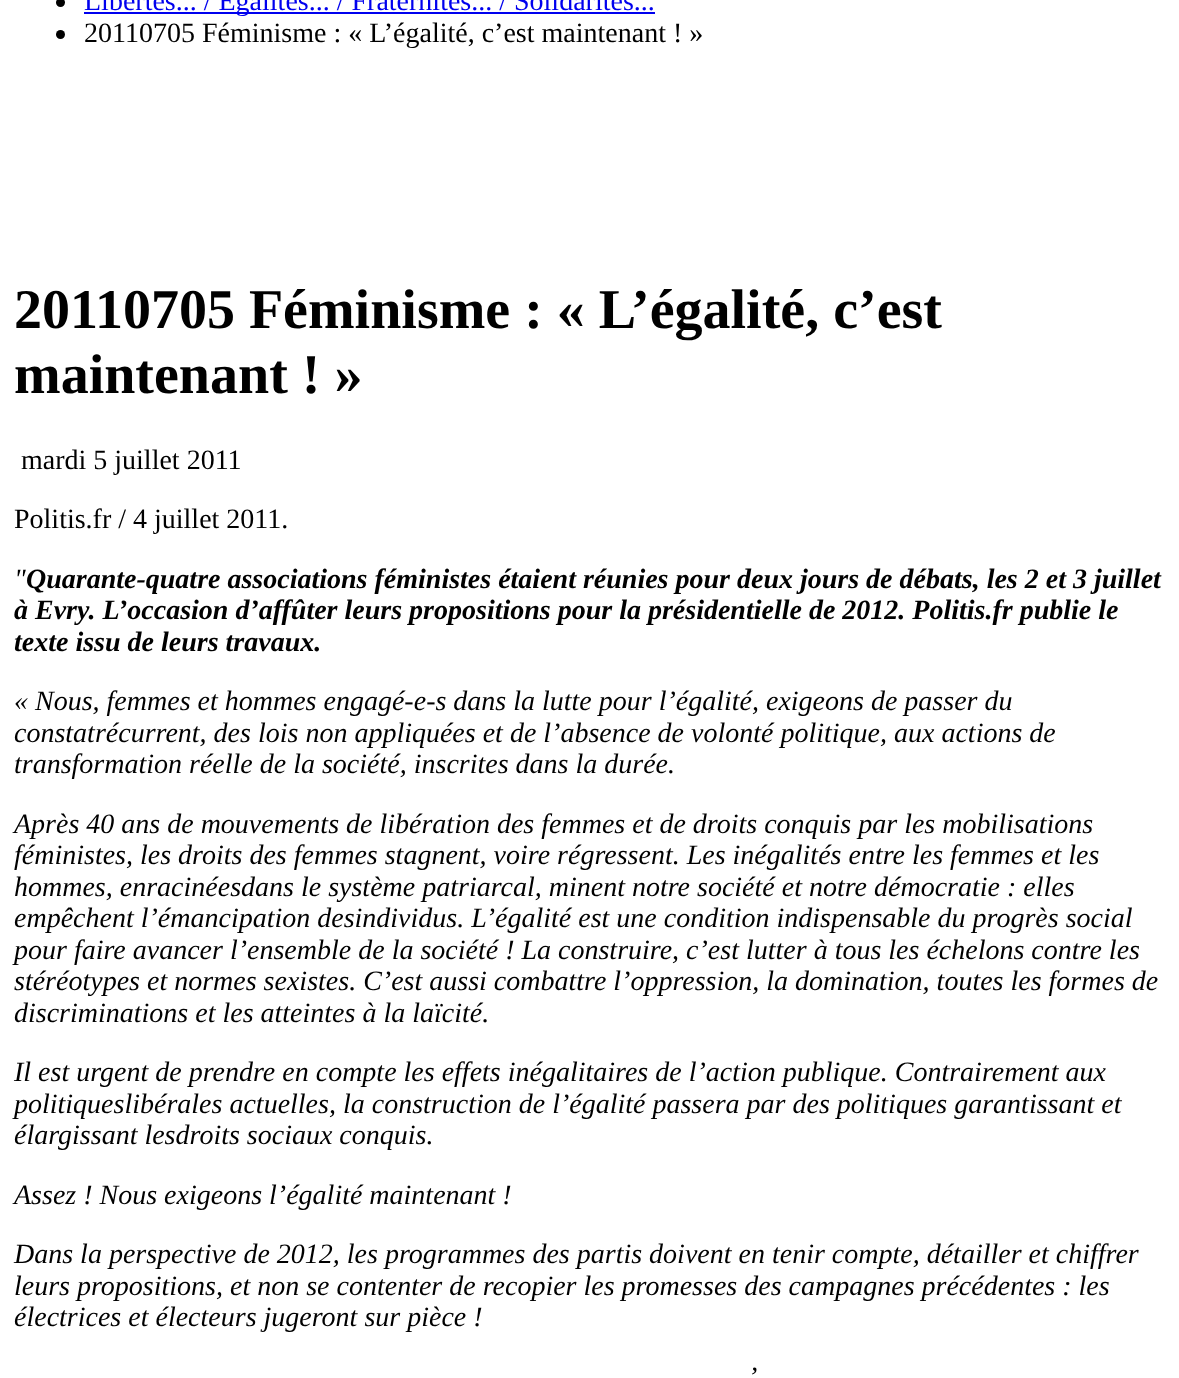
(async () => {
  const canvas = document.querySelector("canvas");
  canvas.width = 1179;
  canvas.height = 1378;
  const ctx = canvas.getContext("2d");
  ctx.miterLimit = 4;
  ctx.fontKerning = "normal";

  ctx.fillStyle = "#ffffff";
  ctx.fillRect(0, 0, 1179, 1378);
  ctx.fillStyle = "#000000";
  ctx.beginPath();
  ctx.arc(60.5, 2.5, 4.5, 0, Math.PI * 2);
  ctx.fill();
  ctx.fillStyle = "#0000ee";
  ctx.fillRect(84, 12, 571, 2);
  ctx.fillStyle = "#000000";
  ctx.beginPath();
  ctx.arc(60.5, 34.5, 4.5, 0, Math.PI * 2);
  ctx.fill();
  ctx.font = "28px Liberation Serif";
  ctx.fillStyle = "#0000ee";
  ctx.fillText("Libertés... / Egalités... / Fraternités... / Solidarités...", 84, 10);
  ctx.fillStyle = "#000000";
  ctx.fillText("20110705 Féminisme : « L’égalité, c’est maintenant ! »", 84, 42);
  ctx.font = "bold 56px Liberation Serif";
  ctx.fillText("20110705 Féminisme : « L’égalité, c’est", 14, 328);
  ctx.fillText("maintenant ! »", 14, 393);
  ctx.font = "28px Liberation Serif";
  ctx.fillText("mardi 5 juillet 2011", 21, 469);
  ctx.fillText("Politis.fr / 4 juillet 2011.", 14, 528);
  ctx.font = "italic 28px Liberation Serif";
  ctx.fillText("\"", 14, 588);
  ctx.font = "italic bold 28px Liberation Serif";
  for (const [text, x, y] of [
    ["Quarante-quatre associations féministes étaient réunies pour deux jours de débats, les 2 et 3 juillet", 26, 588],
    ["à Evry. L’occasion d’affûter leurs propositions pour la présidentielle de 2012. Politis.fr publie le", 14, 619],
    ["texte issu de leurs travaux.", 14, 651],
  ]) {
    ctx.fillText(text, x, y);
  }
  ctx.font = "italic 28px Liberation Serif";
  for (const [text, x, y] of [
    ["« Nous, femmes et hommes engagé-e-s dans la lutte pour l’égalité, exigeons de passer du", 14, 710],
    ["constatrécurrent, des lois non appliquées et de l’absence de volonté politique, aux actions de", 14, 742],
    ["transformation réelle de la société, inscrites dans la durée.", 14, 773],
    ["Après 40 ans de mouvements de libération des femmes et de droits conquis par les mobilisations", 14, 833],
    ["féministes, les droits des femmes stagnent, voire régressent. Les inégalités entre les femmes et les", 14, 864],
    ["hommes, enracinéesdans le système patriarcal, minent notre société et notre démocratie : elles", 14, 896],
    ["empêchent l’émancipation desindividus. L’égalité est une condition indispensable du progrès social", 14, 927],
    ["pour faire avancer l’ensemble de la société ! La construire, c’est lutter à tous les échelons contre les", 14, 959],
    ["stéréotypes et normes sexistes. C’est aussi combattre l’oppression, la domination, toutes les formes de", 14, 990],
    ["discriminations et les atteintes à la laïcité.", 14, 1022],
    ["Il est urgent de prendre en compte les effets inégalitaires de l’action publique. Contrairement aux", 14, 1081],
    ["politiqueslibérales actuelles, la construction de l’égalité passera par des politiques garantissant et", 14, 1113],
    ["élargissant lesdroits sociaux conquis.", 14, 1144],
    ["Assez ! Nous exigeons l’égalité maintenant !", 14, 1204],
    ["Dans la perspective de 2012, les programmes des partis doivent en tenir compte, détailler et chiffrer", 14, 1263],
    ["leurs propositions, et non se contenter de recopier les promesses des campagnes précédentes : les", 14, 1295],
    ["électrices et électeurs jugeront sur pièce !", 14, 1326],
    ["’", 748, 1386],
  ]) {
    ctx.fillText(text, x, y);
  }
})();
